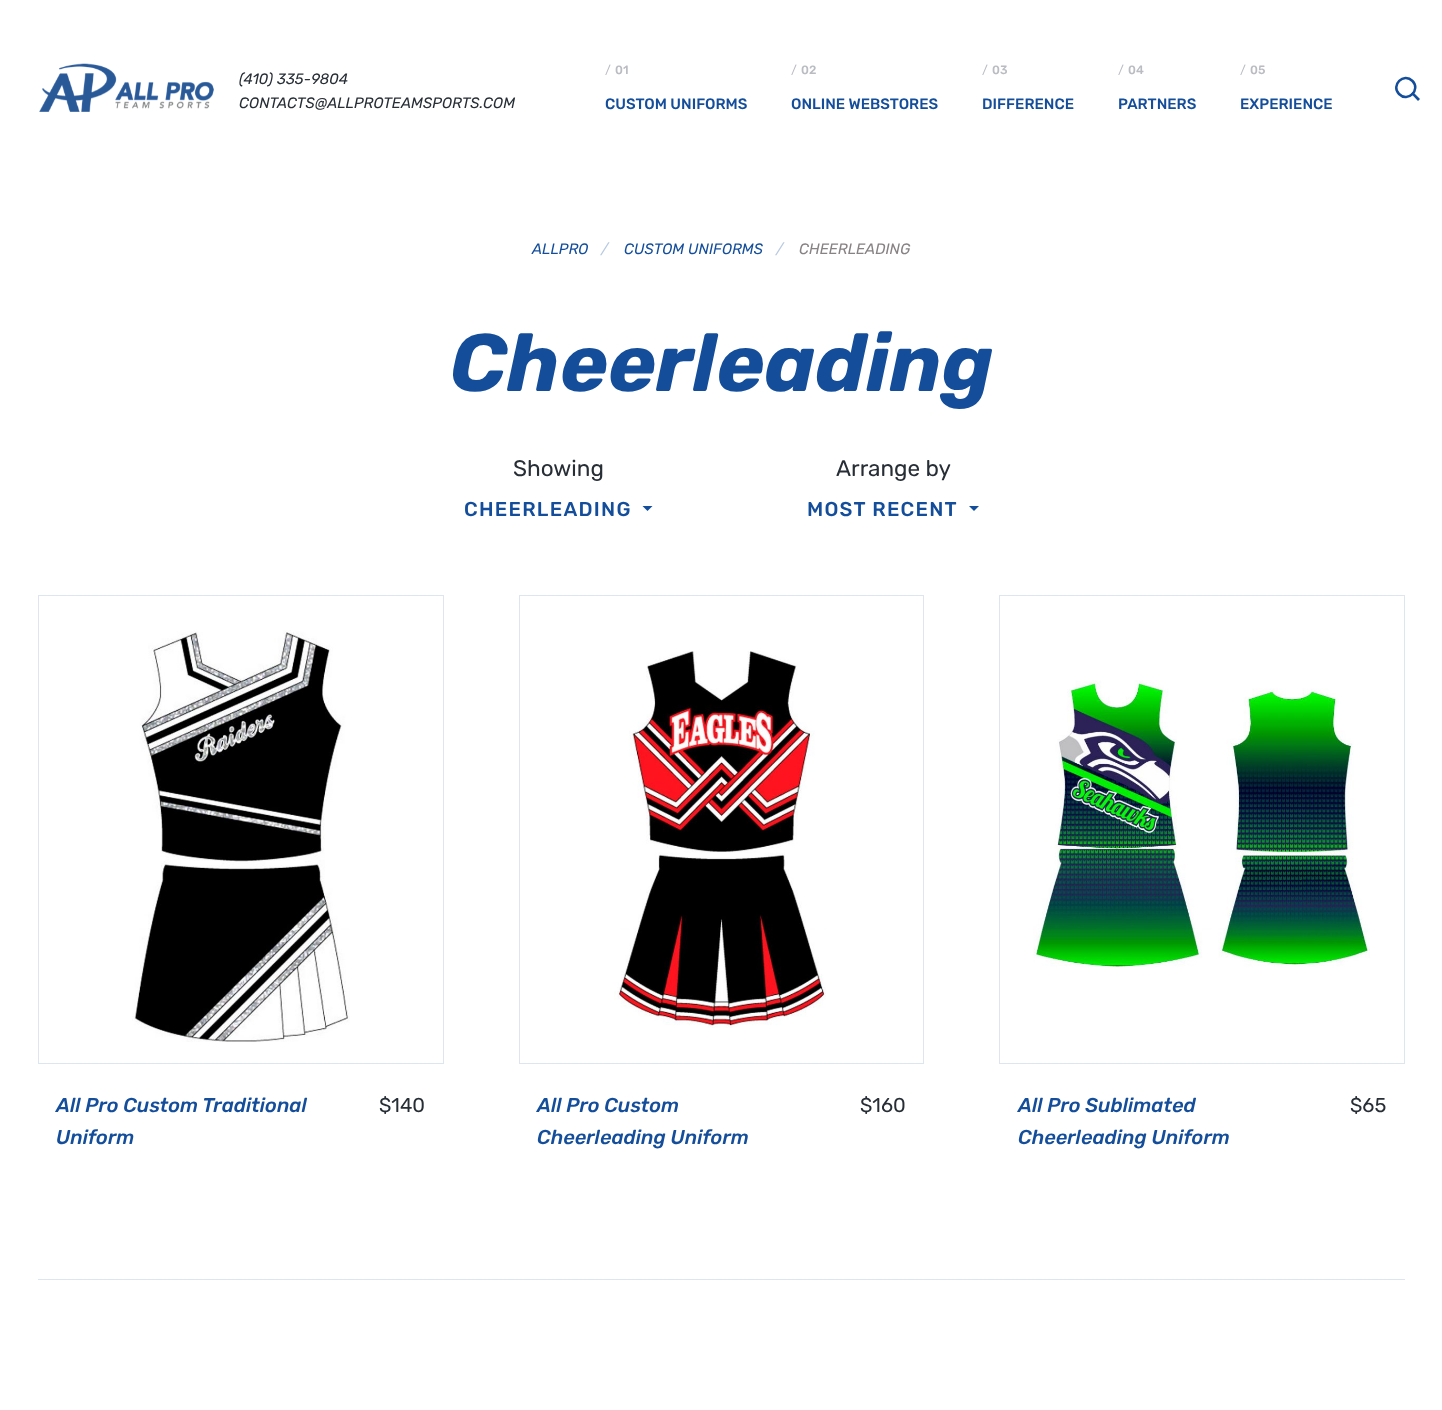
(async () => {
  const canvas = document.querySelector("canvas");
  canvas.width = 1442;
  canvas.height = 1410;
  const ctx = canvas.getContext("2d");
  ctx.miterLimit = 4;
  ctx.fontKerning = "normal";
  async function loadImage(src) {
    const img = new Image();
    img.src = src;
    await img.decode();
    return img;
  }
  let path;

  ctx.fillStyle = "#ffffff";
  ctx.fillRect(0, 0, 1442, 1410);
  ctx.drawImage(await loadImage("img/1.png"), 39, 63, 175, 49);
  ctx.fillStyle = "#144e9b";
  path = new Path2D("M1413 92L1420 99L1418 101L1411 93.5Z");
  ctx.fill(path, "evenodd");
  path = new Path2D("M1412.5 81C1421 89.5 1408 103 1399 94C1390.5 85.5 1403.5 72 1412.5 81Z");
  ctx.strokeStyle = "#144e9b";
  ctx.lineWidth = 2.5;
  ctx.stroke(path);
  path = new Path2D("M642.5 506H652.5L647.5 511Z");
  ctx.fill(path);
  path = new Path2D("M969 506H979L974 511Z");
  ctx.fill(path);
  ctx.drawImage(await loadImage("img/2.png"), 132, 630, 218, 412);
  ctx.strokeStyle = "#dce5f0";
  ctx.lineWidth = 1;
  ctx.strokeRect(38.5, 595.5, 405, 468);
  ctx.drawImage(await loadImage("img/3.png"), 614, 651, 212, 377);
  ctx.strokeRect(519.5, 595.5, 404, 468);
  ctx.drawImage(await loadImage("img/4.png"), 1033, 680, 337, 288);
  ctx.strokeRect(999.5, 595.5, 405, 468);
  ctx.fillStyle = "#dce5f0";
  ctx.fillRect(38, 1279, 1367, 1);
  ctx.font = "italic 15px Rubik";
  ctx.fillStyle = "#272e36";
  ctx.fillText("(410) 335-9804", 239, 84);
  ctx.fillText("CONTACTS@ALLPROTEAMSPORTS.COM", 239, 108);
  ctx.font = "12px Rubik";
  ctx.fillStyle = "#babcc2";
  ctx.fillText("/", 605, 74);
  ctx.font = "500 12px Rubik";
  ctx.fillText("01", 615, 74);
  ctx.font = "500 15px Rubik";
  ctx.fillStyle = "#144e9b";
  ctx.fillText("CUSTOM UNIFORMS", 605, 109);
  ctx.font = "12px Rubik";
  ctx.fillStyle = "#babcc2";
  ctx.fillText("/", 791, 74);
  ctx.font = "500 12px Rubik";
  ctx.fillText("02", 801, 74);
  ctx.font = "500 15px Rubik";
  ctx.fillStyle = "#144e9b";
  ctx.fillText("ONLINE WEBSTORES", 791, 109);
  ctx.font = "12px Rubik";
  ctx.fillStyle = "#babcc2";
  ctx.fillText("/", 982, 74);
  ctx.font = "500 12px Rubik";
  ctx.fillText("03", 992, 74);
  ctx.font = "500 15px Rubik";
  ctx.fillStyle = "#144e9b";
  ctx.fillText("DIFFERENCE", 982, 109);
  ctx.font = "12px Rubik";
  ctx.fillStyle = "#babcc2";
  ctx.fillText("/", 1118, 74);
  ctx.font = "500 12px Rubik";
  ctx.fillText("04", 1128, 74);
  ctx.font = "500 15px Rubik";
  ctx.fillStyle = "#144e9b";
  ctx.fillText("PARTNERS", 1118, 109);
  ctx.font = "12px Rubik";
  ctx.fillStyle = "#babcc2";
  ctx.fillText("/", 1240, 74);
  ctx.font = "500 12px Rubik";
  ctx.fillText("05", 1250, 74);
  ctx.font = "500 15px Rubik";
  ctx.fillStyle = "#144e9b";
  ctx.fillText("EXPERIENCE", 1240, 109);
  ctx.font = "italic 15px Rubik";
  ctx.fillText("ALLPRO", 532, 254);
  ctx.fillStyle = "#b9cae1";
  ctx.fillText("/", 601, 254);
  ctx.fillStyle = "#144e9b";
  ctx.fillText("CUSTOM UNIFORMS", 624, 254);
  ctx.fillStyle = "#b9cae1";
  ctx.fillText("/", 776, 254);
  ctx.fillStyle = "#878284";
  ctx.fillText("CHEERLEADING", 799, 254);
  ctx.font = "italic bold 81.25px Rubik";
  ctx.fillStyle = "#144e9b";
  ctx.fillText("Cheerleading", 450, 391);
  ctx.font = "22.5px Rubik";
  ctx.fillStyle = "#272e36";
  ctx.fillText("Showing", 513, 476);
  ctx.letterSpacing = "1.25px";
  ctx.font = "500 20px Rubik";
  ctx.fillStyle = "#144e9b";
  ctx.fillText("CHEERLEADING", 464, 516);
  ctx.letterSpacing = "0px";
  ctx.font = "22.5px Rubik";
  ctx.fillStyle = "#272e36";
  ctx.fillText("Arrange by", 836, 476);
  ctx.letterSpacing = "1.25px";
  ctx.font = "500 20px Rubik";
  ctx.fillStyle = "#144e9b";
  ctx.fillText("MOST RECENT", 807, 516);
  ctx.letterSpacing = "0px";
  ctx.font = "italic 500 20px Rubik";
  ctx.fillText("All Pro Custom Traditional", 56, 1112);
  ctx.fillText("Uniform", 56, 1144);
  ctx.font = "20px Rubik";
  ctx.fillStyle = "#272e36";
  ctx.fillText("$140", 379, 1112);
  ctx.font = "italic 500 20px Rubik";
  ctx.fillStyle = "#144e9b";
  ctx.fillText("All Pro Custom", 537, 1112);
  ctx.fillText("Cheerleading Uniform", 537, 1144);
  ctx.font = "20px Rubik";
  ctx.fillStyle = "#272e36";
  ctx.fillText("$160", 860, 1112);
  ctx.font = "italic 500 20px Rubik";
  ctx.fillStyle = "#144e9b";
  ctx.fillText("All Pro Sublimated", 1018, 1112);
  ctx.fillText("Cheerleading Uniform", 1018, 1144);
  ctx.font = "20px Rubik";
  ctx.fillStyle = "#272e36";
  ctx.fillText("$65", 1350, 1112);
})();
